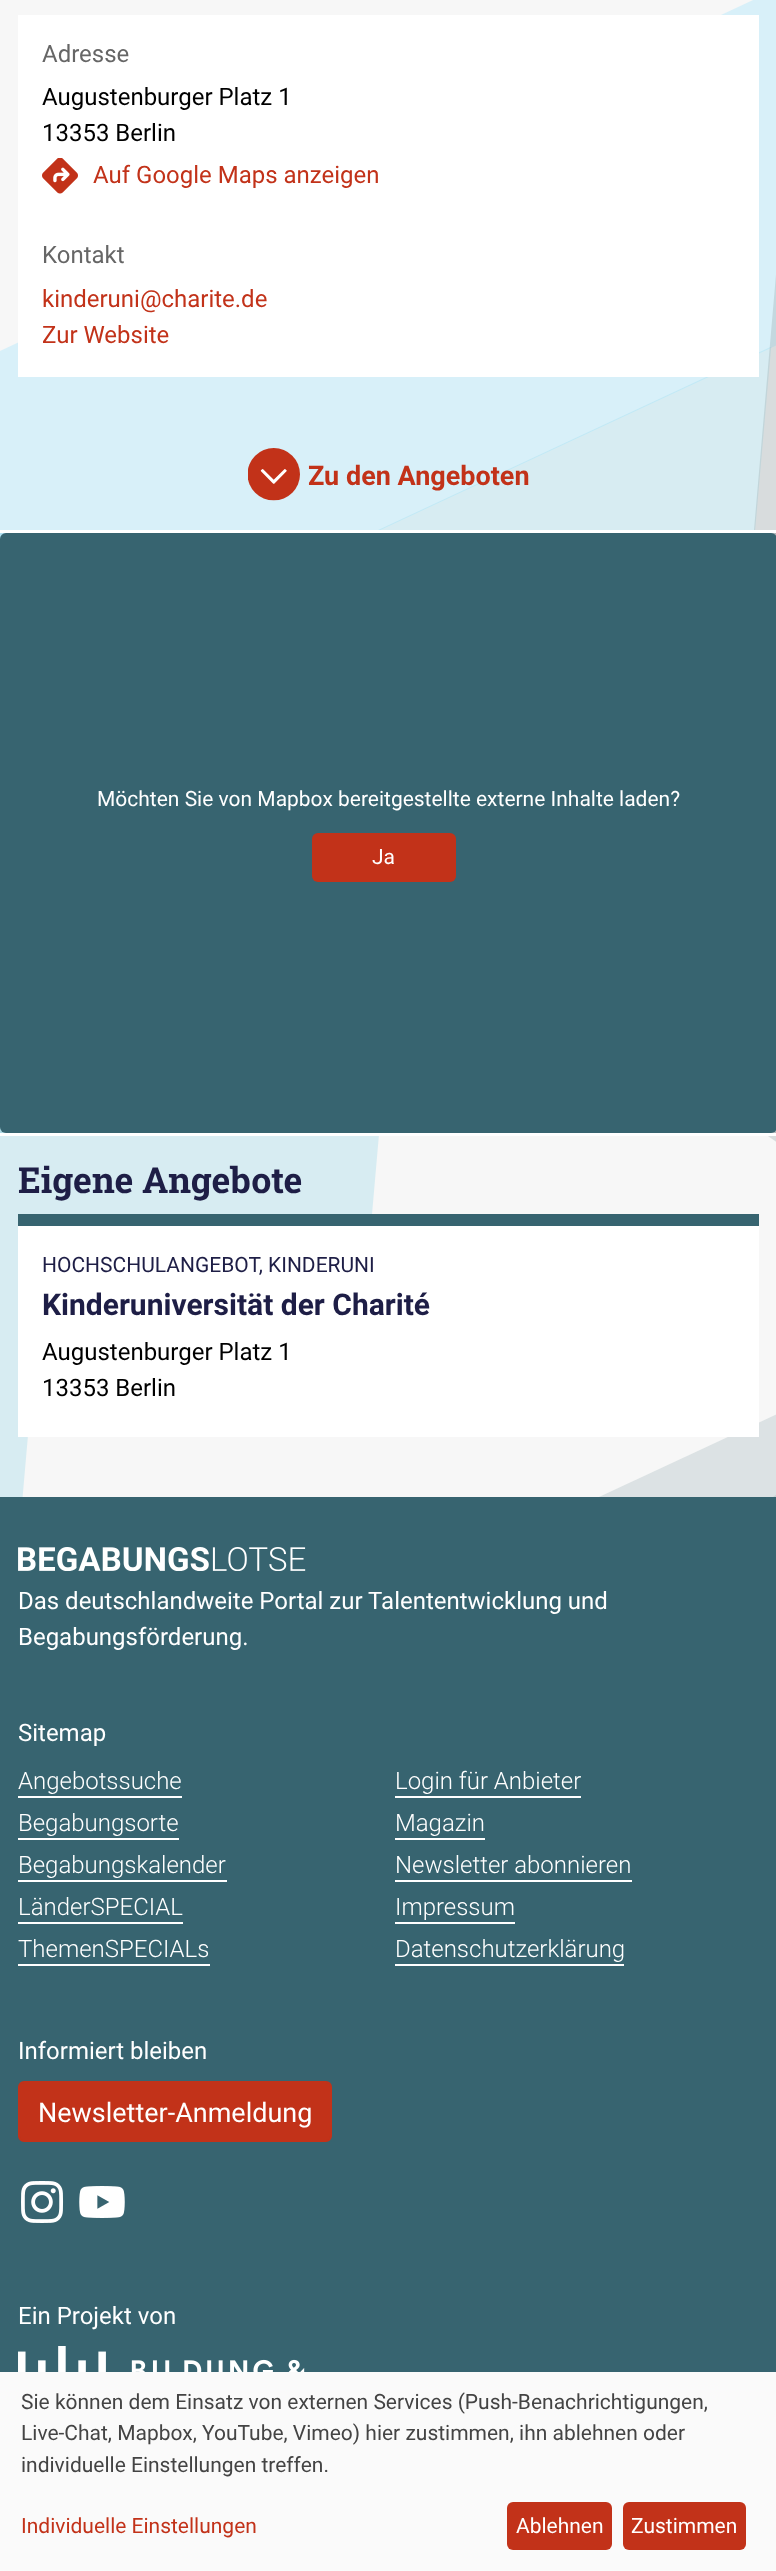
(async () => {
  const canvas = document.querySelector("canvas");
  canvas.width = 776;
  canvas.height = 2571;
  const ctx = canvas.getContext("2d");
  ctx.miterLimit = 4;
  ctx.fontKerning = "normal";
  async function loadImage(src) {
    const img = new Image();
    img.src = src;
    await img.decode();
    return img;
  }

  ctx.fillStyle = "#eeeeee";
  ctx.fillRect(0, 0, 776, 2571);
  ctx.drawImage(await loadImage("img/1.png"), 0, 0, 776, 1497);
  for (const [x, y, w, h, color] of [
    [0, 0, 776, 530, "rgba(255, 255, 255, 0.5)"],
    [0, 530, 776, 3, "#ffffff"],
    [18, 15, 741, 362, "#ffffff"],
  ]) {
    ctx.fillStyle = color;
    ctx.fillRect(x, y, w, h);
  }
  ctx.drawImage(await loadImage("img/2.png"), 42, 158, 36, 36);
  ctx.drawImage(await loadImage("img/3.png"), 248, 448, 52, 53);
  ctx.fillRect(0, 1133, 776, 3);
  ctx.fillStyle = "#376470";
  ctx.beginPath();
  ctx.roundRect(0, 533, 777, 600, 6);
  ctx.fill();
  ctx.fillStyle = "#c23219";
  ctx.beginPath();
  ctx.roundRect(312, 833, 144, 49, 6);
  ctx.fill();
  for (const [x, y, w, h, color] of [
    [0, 1136, 776, 361, "rgba(255, 255, 255, 0.5)"],
    [18, 1226, 741, 211, "#ffffff"],
    [18, 1214, 741, 12, "#376470"],
    [0, 1497, 776, 875, "#376470"],
  ]) {
    ctx.fillStyle = color;
    ctx.fillRect(x, y, w, h);
  }
  ctx.drawImage(await loadImage("img/4.png"), 18, 1547, 288, 24);
  for (const [x, y, w, h, color] of [
    [18, 1796, 164, 2, "#ffffff"],
    [395, 1796, 186, 2, "#ffffff"],
    [18, 1838, 161, 2, "#ffffff"],
    [395, 1838, 90, 2, "#ffffff"],
    [18, 1880, 209, 2, "#ffffff"],
    [395, 1880, 237, 2, "#ffffff"],
    [18, 1922, 165, 2, "#ffffff"],
    [395, 1922, 120, 2, "#ffffff"],
    [18, 1964, 192, 2, "#ffffff"],
    [395, 1964, 229, 2, "#ffffff"],
  ]) {
    ctx.fillStyle = color;
    ctx.fillRect(x, y, w, h);
  }
  ctx.fillStyle = "#c23219";
  ctx.beginPath();
  ctx.roundRect(19, 2082, 312, 59, 5);
  ctx.fill();
  ctx.strokeStyle = "#c23219";
  ctx.lineWidth = 2;
  ctx.stroke();
  ctx.drawImage(await loadImage("img/5.png"), 21, 2181, 43, 42);
  ctx.drawImage(await loadImage("img/6.png"), 79, 2186, 46, 32);
  ctx.drawImage(await loadImage("img/7.png"), 18, 2346, 287, 26);
  ctx.fillStyle = "#fafafa";
  ctx.fillRect(0, 2372, 776, 199);
  ctx.fillStyle = "#c23219";
  ctx.beginPath();
  ctx.roundRect(507, 2502, 105, 48, 6);
  ctx.fill();
  ctx.beginPath();
  ctx.roundRect(623, 2502, 123, 48, 6);
  ctx.fill();
  ctx.font = "24px Roboto";
  ctx.fillStyle = "#666666";
  ctx.fillText("Adresse", 42, 62);
  ctx.fillStyle = "#000000";
  ctx.fillText("Augustenburger Platz 1", 42, 105);
  ctx.fillText("13353 Berlin", 42, 141);
  ctx.fillStyle = "#c23219";
  ctx.fillText("Auf Google Maps anzeigen", 93, 183);
  ctx.fillStyle = "#666666";
  ctx.fillText("Kontakt", 42, 263);
  ctx.fillStyle = "#c23219";
  ctx.fillText("kinderuni@charite.de", 42, 307);
  ctx.fillText("Zur Website", 42, 343);
  ctx.font = "bold 27px Roboto";
  ctx.fillText("Zu den Angeboten", 308, 485);
  ctx.font = "21px Roboto";
  ctx.fillStyle = "#ffffff";
  ctx.fillText("Möchten Sie von Mapbox bereitgestellte externe Inhalte laden?", 97, 806);
  ctx.fillText("Ja", 372, 864);
  ctx.font = "bold 35.75px Roboto Slab";
  ctx.fillStyle = "#1e1e46";
  ctx.fillText("Eigene Angebote", 18, 1193);
  ctx.font = "21px Roboto";
  ctx.fillText("HOCHSCHULANGEBOT, KINDERUNI", 42, 1272);
  ctx.font = "bold 30px Roboto";
  ctx.fillText("Kinderuniversität der Charité", 42, 1315);
  ctx.font = "24px Roboto";
  ctx.fillStyle = "#000000";
  ctx.fillText("Augustenburger Platz 1", 42, 1360);
  ctx.fillText("13353 Berlin", 42, 1396);
  ctx.fillStyle = "#ffffff";
  for (const [text, x, y] of [
    ["Das deutschlandweite Portal zur Talententwicklung und", 18, 1609],
    ["Begabungsförderung.", 18, 1645],
    ["Sitemap", 18, 1741],
  ]) {
    ctx.fillText(text, x, y);
  }
  ctx.font = "300 24px Roboto";
  for (const [text, x, y] of [
    ["Angebotssuche", 18, 1789],
    ["Login für Anbieter", 395, 1789],
    ["Begabungsorte", 18, 1831],
    ["Magazin", 395, 1831],
    ["Begabungskalender", 18, 1873],
    ["Newsletter abonnieren", 395, 1873],
    ["LänderSPECIAL", 18, 1915],
    ["Impressum", 395, 1915],
    ["ThemenSPECIALs", 18, 1957],
    ["Datenschutzerklärung", 395, 1957],
  ]) {
    ctx.fillText(text, x, y);
  }
  ctx.font = "24px Roboto";
  ctx.fillText("Informiert bleiben", 18, 2059);
  ctx.font = "27px Roboto";
  ctx.fillText("Newsletter-Anmeldung", 38, 2122);
  ctx.font = "24px Roboto";
  ctx.fillText("Ein Projekt von", 18, 2324);
  ctx.font = "21px Roboto";
  ctx.fillStyle = "#444444";
  for (const [text, x, y] of [
    ["Sie können dem Einsatz von externen Services (Push-Benachrichtigungen,", 21, 2409],
    ["Live-Chat, Mapbox, YouTube, Vimeo) hier zustimmen, ihn ablehnen oder", 21, 2440],
    ["individuelle Einstellungen treffen.", 21, 2472],
  ]) {
    ctx.fillText(text, x, y);
  }
  ctx.fillStyle = "#c23219";
  ctx.fillText("Individuelle Einstellungen", 21, 2533);
  ctx.fillStyle = "#ffffff";
  ctx.fillText("Ablehnen", 516, 2533);
  ctx.fillText("Zustimmen", 631, 2533);
})();
